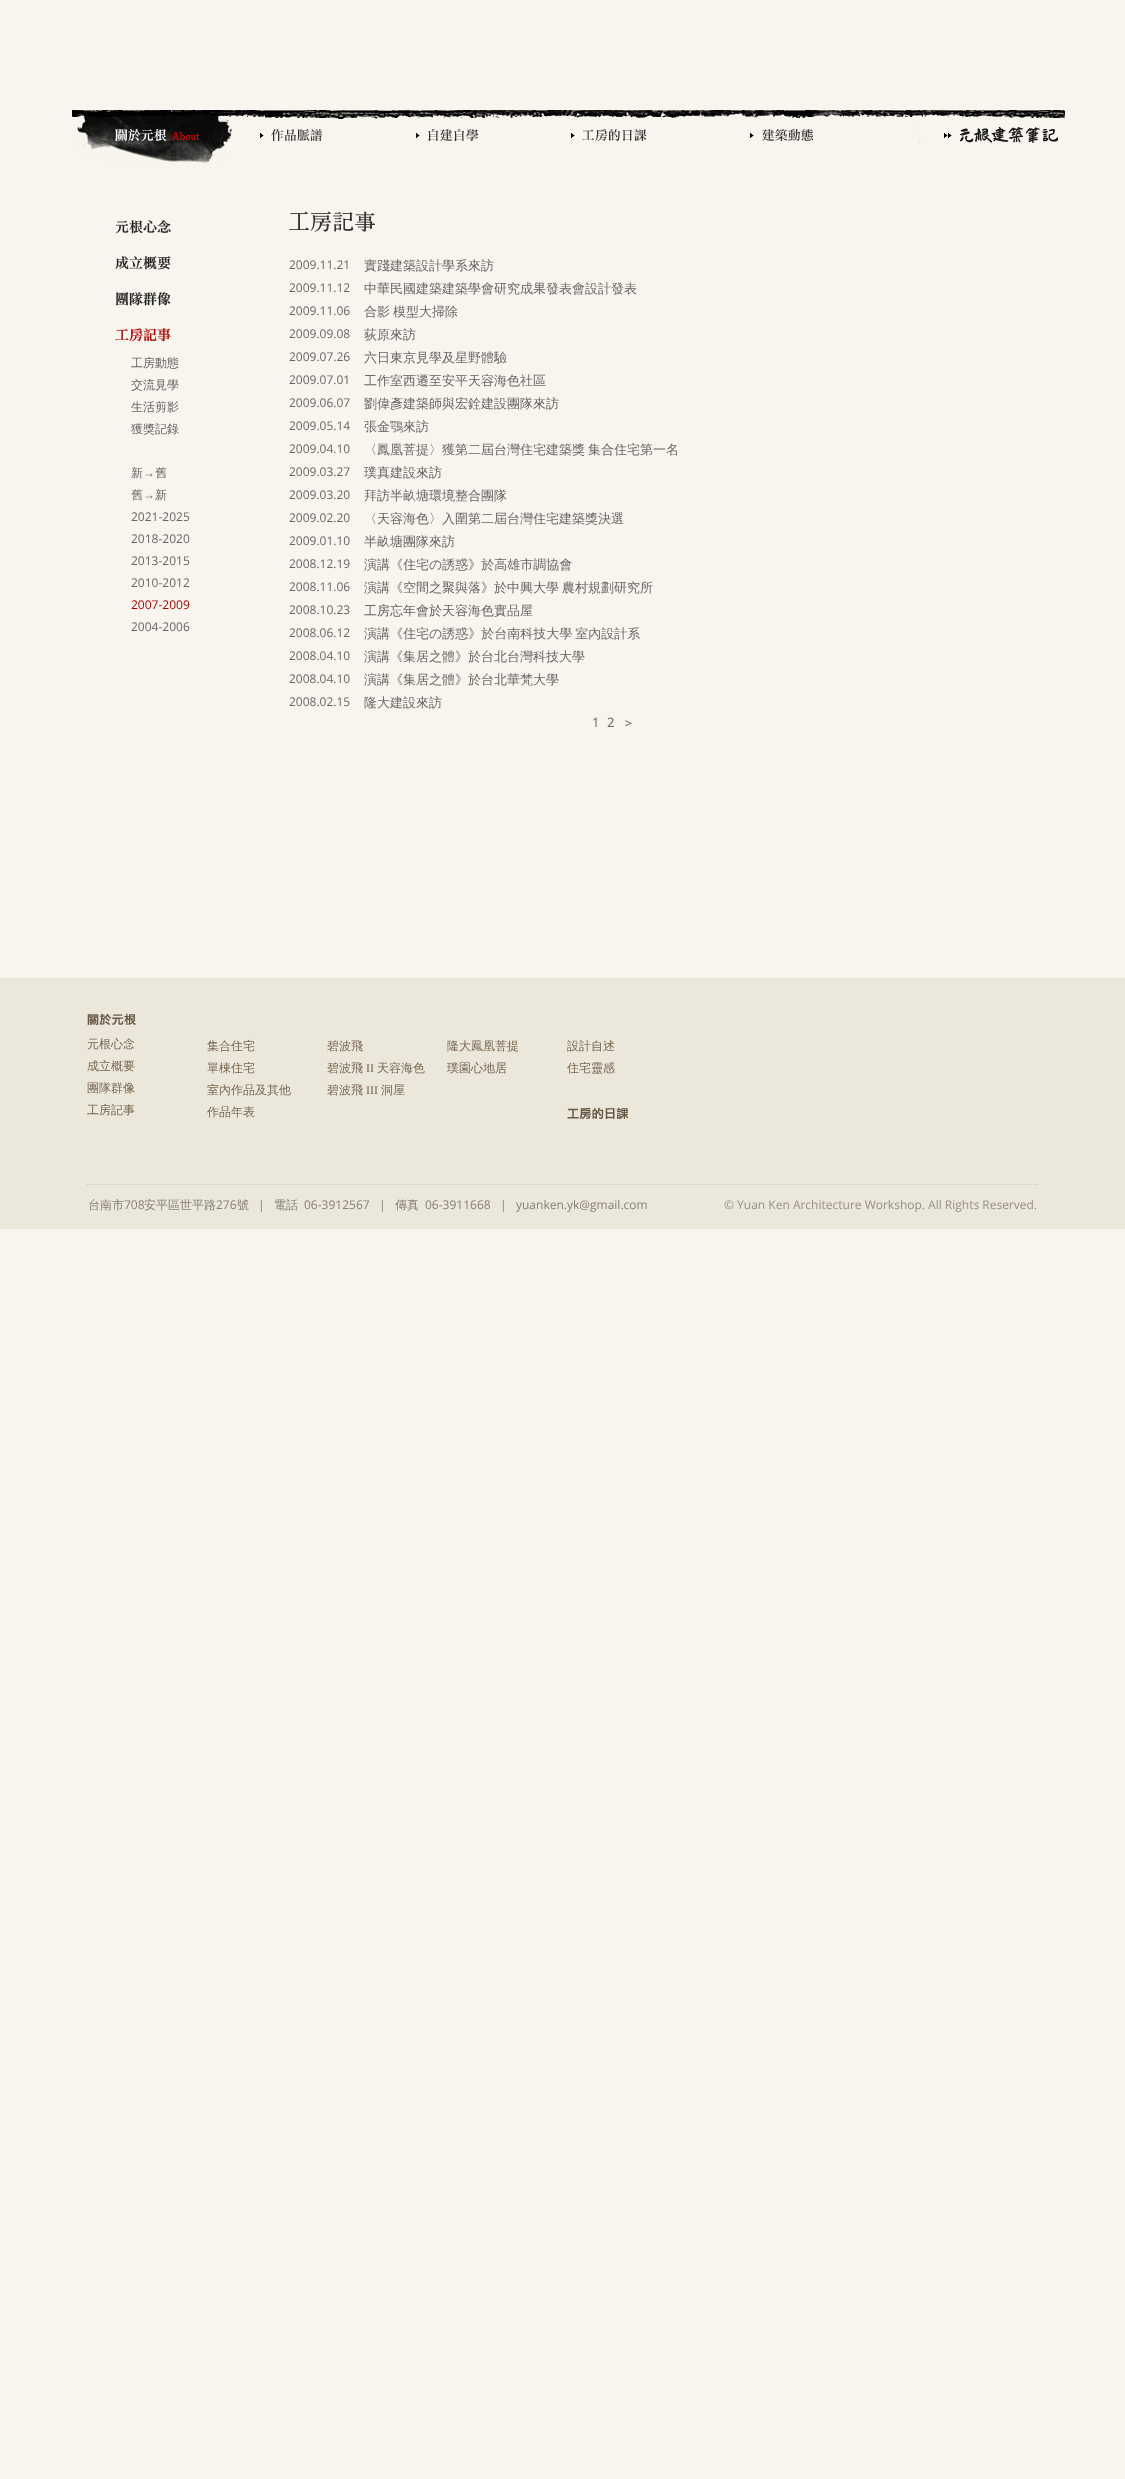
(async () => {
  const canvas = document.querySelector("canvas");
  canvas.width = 1125;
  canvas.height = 2479;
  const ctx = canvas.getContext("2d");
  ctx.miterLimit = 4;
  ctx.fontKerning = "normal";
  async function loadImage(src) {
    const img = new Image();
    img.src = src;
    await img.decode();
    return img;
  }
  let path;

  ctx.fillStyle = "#f8f5ee";
  ctx.fillRect(0, 0, 1125, 2479);
  ctx.drawImage(await loadImage("img/1.png"), 72, 110, 160, 53);
  ctx.drawImage(await loadImage("img/2.png"), 232, 110, 160, 31);
  ctx.drawImage(await loadImage("img/3.png"), 392, 110, 160, 31);
  ctx.drawImage(await loadImage("img/4.png"), 552, 110, 180, 31);
  ctx.drawImage(await loadImage("img/5.png"), 732, 110, 180, 31);
  ctx.drawImage(await loadImage("img/6.png"), 912, 110, 153, 33);
  ctx.drawImage(await loadImage("img/7.png"), 115, 220, 56, 14);
  ctx.drawImage(await loadImage("img/8.png"), 115, 256, 56, 14);
  ctx.drawImage(await loadImage("img/9.png"), 116, 292, 55, 14);
  ctx.drawImage(await loadImage("img/10.png"), 115, 328, 56, 14);
  ctx.drawImage(await loadImage("img/11.png"), 289, 211, 86, 21);
  ctx.fillStyle = "#ece7db";
  ctx.fillRect(0, 978, 1125, 251);
  path = new Path2D("M87 1184.5H1038");
  ctx.strokeStyle = "#cfc7b0";
  ctx.setLineDash([1, 1]);
  ctx.stroke(path);
  ctx.drawImage(await loadImage("img/12.png"), 87, 1013, 49, 12);
  ctx.drawImage(await loadImage("img/13.png"), 567, 1107, 61, 12);
  ctx.font = "500 12px WenQuanYi Zen Hei";
  ctx.fillStyle = "#666666";
  for (const [text, x, y] of [
    ["工房動態", 131, 367],
    ["交流見學", 131, 389],
    ["生活剪影", 131, 411],
    ["獲獎記錄", 131, 433],
    ["新", 131, 477],
  ]) {
    ctx.fillText(text, x, y);
  }
  ctx.font = "12px Liberation Sans";
  ctx.fillText("→", 143, 477);
  ctx.font = "500 12px WenQuanYi Zen Hei";
  ctx.fillText("舊", 155, 477);
  ctx.fillText("舊", 131, 499);
  ctx.font = "12px Liberation Sans";
  ctx.fillText("→", 143, 499);
  ctx.font = "500 12px WenQuanYi Zen Hei";
  ctx.fillText("新", 155, 499);
  ctx.font = "12px Open Sans";
  for (const [text, x, y] of [
    ["2021-2025", 131, 521],
    ["2018-2020", 131, 543],
    ["2013-2015", 131, 565],
    ["2010-2012", 131, 587],
  ]) {
    ctx.fillText(text, x, y);
  }
  ctx.fillStyle = "#ac0000";
  ctx.fillText("2007-2009", 131, 609);
  ctx.fillStyle = "#666666";
  ctx.fillText("2004-2006", 131, 631);
  ctx.fillText("2009.11.21", 289, 269);
  ctx.font = "500 13px WenQuanYi Zen Hei";
  ctx.fillText("實踐建築設計學系來訪", 364, 270);
  ctx.font = "12px Open Sans";
  ctx.fillText("2009.11.12", 289, 292);
  ctx.font = "500 13px WenQuanYi Zen Hei";
  ctx.fillText("中華民國建築建築學會研究成果發表會設計發表", 364, 293);
  ctx.font = "12px Open Sans";
  ctx.fillText("2009.11.06", 289, 315);
  ctx.wordSpacing = "-1px";
  ctx.font = "500 13px WenQuanYi Zen Hei";
  ctx.fillText("合影 模型大掃除", 364, 316);
  ctx.wordSpacing = "0px";
  ctx.font = "12px Open Sans";
  ctx.fillText("2009.09.08", 289, 338);
  ctx.font = "500 13px WenQuanYi Zen Hei";
  ctx.fillText("荻原來訪", 364, 339);
  ctx.font = "12px Open Sans";
  ctx.fillText("2009.07.26", 289, 361);
  ctx.font = "500 13px WenQuanYi Zen Hei";
  ctx.fillText("六日東京見學及星野體驗", 364, 362);
  ctx.font = "12px Open Sans";
  ctx.fillText("2009.07.01", 289, 384);
  ctx.font = "500 13px WenQuanYi Zen Hei";
  ctx.fillText("工作室西遷至安平天容海色社區", 364, 385);
  ctx.font = "12px Open Sans";
  ctx.fillText("2009.06.07", 289, 407);
  ctx.font = "500 13px WenQuanYi Zen Hei";
  ctx.fillText("劉偉彥建築師與宏銓建設團隊來訪", 364, 408);
  ctx.font = "12px Open Sans";
  ctx.fillText("2009.05.14", 289, 430);
  ctx.font = "500 13px WenQuanYi Zen Hei";
  ctx.fillText("張金鶚來訪", 364, 431);
  ctx.font = "12px Open Sans";
  ctx.fillText("2009.04.10", 289, 453);
  ctx.wordSpacing = "-1px";
  ctx.font = "500 13px WenQuanYi Zen Hei";
  ctx.fillText("〈鳳凰菩提〉獲第二屆台灣住宅建築獎 集合住宅第一名", 364, 454);
  ctx.wordSpacing = "0px";
  ctx.font = "12px Open Sans";
  ctx.fillText("2009.03.27", 289, 476);
  ctx.font = "500 13px WenQuanYi Zen Hei";
  ctx.fillText("璞真建設來訪", 364, 477);
  ctx.font = "12px Open Sans";
  ctx.fillText("2009.03.20", 289, 499);
  ctx.font = "500 13px WenQuanYi Zen Hei";
  ctx.fillText("拜訪半畝塘環境整合團隊", 364, 500);
  ctx.font = "12px Open Sans";
  ctx.fillText("2009.02.20", 289, 522);
  ctx.font = "500 13px WenQuanYi Zen Hei";
  ctx.fillText("〈天容海色〉入圍第二屆台灣住宅建築獎決選", 364, 523);
  ctx.font = "12px Open Sans";
  ctx.fillText("2009.01.10", 289, 545);
  ctx.font = "500 13px WenQuanYi Zen Hei";
  ctx.fillText("半畝塘團隊來訪", 364, 546);
  ctx.font = "12px Open Sans";
  ctx.fillText("2008.12.19", 289, 568);
  ctx.font = "500 13px WenQuanYi Zen Hei";
  ctx.fillText("演講《住宅の誘惑》於高雄市調協會", 364, 569);
  ctx.font = "12px Open Sans";
  ctx.fillText("2008.11.06", 289, 591);
  ctx.wordSpacing = "-1px";
  ctx.font = "500 13px WenQuanYi Zen Hei";
  ctx.fillText("演講《空間之聚與落》於中興大學 農村規劃研究所", 364, 592);
  ctx.wordSpacing = "0px";
  ctx.font = "12px Open Sans";
  ctx.fillText("2008.10.23", 289, 614);
  ctx.font = "500 13px WenQuanYi Zen Hei";
  ctx.fillText("工房忘年會於天容海色實品屋", 364, 615);
  ctx.font = "12px Open Sans";
  ctx.fillText("2008.06.12", 289, 637);
  ctx.wordSpacing = "-1px";
  ctx.font = "500 13px WenQuanYi Zen Hei";
  ctx.fillText("演講《住宅の誘惑》於台南科技大學 室內設計系", 364, 638);
  ctx.wordSpacing = "0px";
  ctx.font = "12px Open Sans";
  ctx.fillText("2008.04.10", 289, 660);
  ctx.font = "500 13px WenQuanYi Zen Hei";
  ctx.fillText("演講《集居之體》於台北台灣科技大學", 364, 661);
  ctx.font = "12px Open Sans";
  ctx.fillText("2008.04.10", 289, 683);
  ctx.font = "500 13px WenQuanYi Zen Hei";
  ctx.fillText("演講《集居之體》於台北華梵大學", 364, 684);
  ctx.font = "12px Open Sans";
  ctx.fillText("2008.02.15", 289, 706);
  ctx.font = "500 13px WenQuanYi Zen Hei";
  ctx.fillText("隆大建設來訪", 364, 707);
  ctx.font = "13px Open Sans";
  ctx.fillText("1", 592, 727);
  ctx.fillText("2", 607, 727);
  ctx.font = "500 13px WenQuanYi Zen Hei";
  ctx.fillText("＞", 622, 727);
  ctx.font = "500 12px WenQuanYi Zen Hei";
  ctx.fillStyle = "#776751";
  for (const [text, x, y] of [
    ["元根心念", 87, 1048],
    ["成立概要", 87, 1070],
    ["團隊群像", 87, 1092],
    ["工房記事", 87, 1114],
    ["集合住宅", 207, 1050],
    ["單棟住宅", 207, 1072],
    ["室內作品及其他", 207, 1094],
    ["作品年表", 207, 1116],
    ["碧波飛", 327, 1050],
    ["碧波飛", 327, 1072],
  ]) {
    ctx.fillText(text, x, y);
  }
  ctx.font = "12px Liberation Serif";
  ctx.fillText("II", 366, 1072);
  ctx.font = "500 12px WenQuanYi Zen Hei";
  ctx.fillText("天容海色", 377, 1072);
  ctx.fillText("碧波飛", 327, 1094);
  ctx.font = "12px Liberation Serif";
  ctx.fillText("III", 366, 1094);
  ctx.font = "500 12px WenQuanYi Zen Hei";
  for (const [text, x, y] of [
    ["洞屋", 381, 1094],
    ["隆大鳳凰菩提", 447, 1050],
    ["璞園心地居", 447, 1072],
    ["設計自述", 567, 1050],
    ["住宅靈感", 567, 1072],
  ]) {
    ctx.fillText(text, x, y);
  }
  ctx.fillStyle = "#868076";
  ctx.fillText("台南市", 88, 1209);
  ctx.font = "12px Open Sans";
  ctx.fillText("708", 124, 1209);
  ctx.font = "500 12px WenQuanYi Zen Hei";
  ctx.fillText("安平區世平路", 144, 1209);
  ctx.font = "12px Open Sans";
  ctx.fillText("276", 216, 1209);
  ctx.font = "500 12px WenQuanYi Zen Hei";
  ctx.fillText("號", 237, 1209);
  ctx.font = "12px Open Sans";
  ctx.fillText("|", 258, 1209);
  ctx.font = "500 12px WenQuanYi Zen Hei";
  ctx.fillText("電話", 274, 1209);
  ctx.font = "12px Open Sans";
  ctx.fillText("06-3912567   |", 304, 1209);
  ctx.font = "500 12px WenQuanYi Zen Hei";
  ctx.fillText("傳真", 395, 1209);
  ctx.font = "12px Open Sans";
  ctx.fillText("06-3911668   |", 425, 1209);
  ctx.fillText("yuanken.yk@gmail.com", 516, 1209);
  ctx.fillStyle = "#958f85";
  ctx.fillText("© Yuan Ken Architecture Workshop. All Rights Reserved.", 724, 1209);
})();
